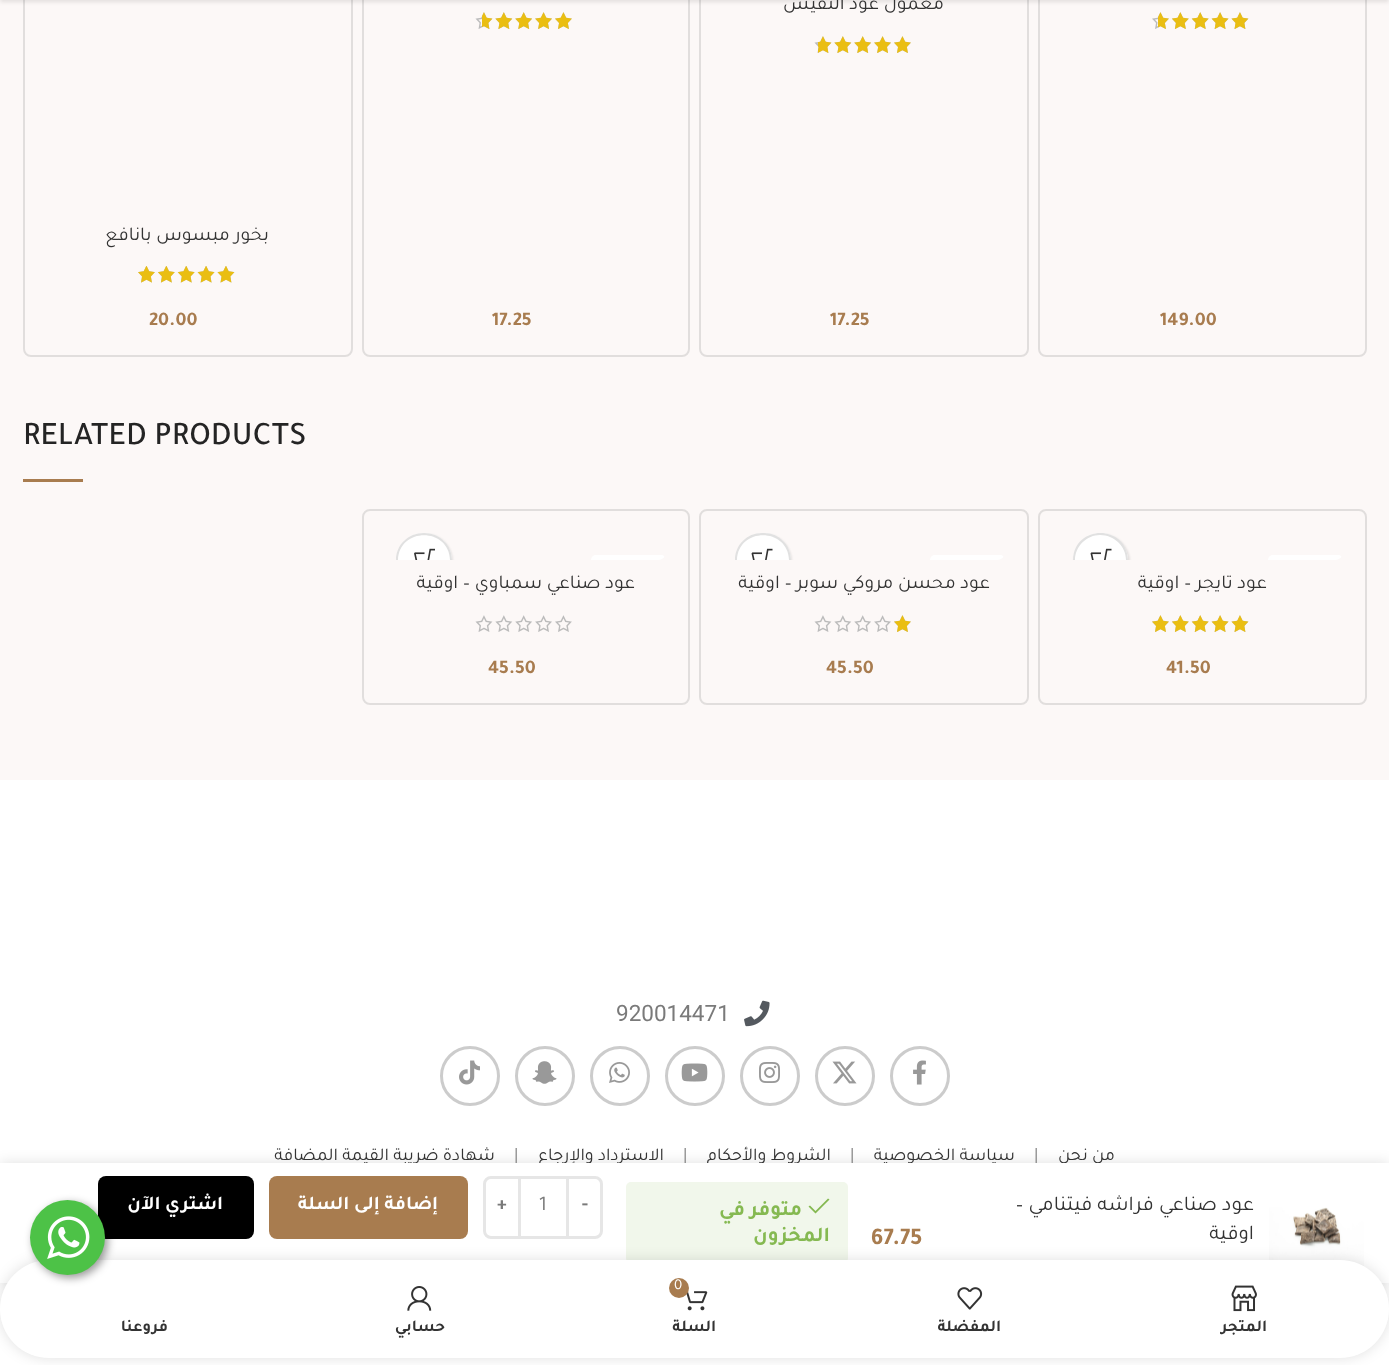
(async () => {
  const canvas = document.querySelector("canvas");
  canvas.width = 1389;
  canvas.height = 1365;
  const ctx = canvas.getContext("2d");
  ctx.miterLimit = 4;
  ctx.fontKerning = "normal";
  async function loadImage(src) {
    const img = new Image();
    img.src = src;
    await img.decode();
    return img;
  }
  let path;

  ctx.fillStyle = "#ffffff";
  ctx.fillRect(0, 0, 1389, 1365);
  ctx.fillStyle = "#fcf8f7";
  ctx.fillRect(0, 0, 1389, 780);
  ctx.beginPath();
  ctx.roundRect(1039, -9, 327, 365, 7);
  ctx.strokeStyle = "#e1dedd";
  ctx.lineWidth = 2;
  ctx.stroke();
  ctx.beginPath();
  ctx.roundRect(700, -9, 328, 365, 7);
  ctx.stroke();
  ctx.beginPath();
  ctx.roundRect(363, -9, 326, 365, 7);
  ctx.stroke();
  ctx.beginPath();
  ctx.roundRect(24, -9, 328, 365, 7);
  ctx.stroke();
  ctx.fillStyle = "rgba(0, 0, 0, 0.1)";
  ctx.filter = "blur(2px)";
  ctx.beginPath();
  ctx.rect(0, -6, 1389, 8);
  ctx.fill();
  ctx.filter = "none";
  ctx.drawImage(await loadImage("img/1.png"), 1152, 12, 97, 17);
  ctx.drawImage(await loadImage("img/2.png"), 1158, 12, 91, 17);
  ctx.drawImage(await loadImage("img/3.png"), 814, 36, 97, 17);
  ctx.drawImage(await loadImage("img/4.png"), 818, 36, 93, 17);
  ctx.drawImage(await loadImage("img/3.png"), 475, 12, 97, 17);
  ctx.drawImage(await loadImage("img/5.png"), 482, 12, 90, 17);
  ctx.drawImage(await loadImage("img/6.png"), 138, 266, 97, 17);
  ctx.drawImage(await loadImage("img/7.png"), 138, 266, 97, 17);
  ctx.fillStyle = "#a87c4f";
  ctx.fillRect(23, 479, 60, 3);
  ctx.beginPath();
  ctx.roundRect(1039, 510, 327, 194, 7);
  ctx.stroke();
  ctx.save();
  ctx.beginPath();
  ctx.roundRect(1062, 533, 281, 27, 8);
  ctx.clip();
  ctx.fillStyle = "#ffffff";
  ctx.beginPath();
  ctx.roundRect(1268, 555, 75, 5, [8, 8, 0, 0]);
  ctx.fill();
  ctx.restore();
  ctx.save();
  ctx.beginPath();
  ctx.roundRect(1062, 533, 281, 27, 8);
  ctx.clip();
  ctx.fillStyle = "rgba(0, 0, 0, 0.1)";
  ctx.filter = "blur(1px)";
  ctx.beginPath();
  ctx.roundRect(1074, 534, 56, 56, 28);
  ctx.fill();
  ctx.filter = "none";
  ctx.restore();
  ctx.fillStyle = "#ffffff";
  ctx.beginPath();
  ctx.roundRect(1073, 533, 55, 27, [27.5, 27.5, 0, 0]);
  ctx.fill();
  ctx.fillStyle = "#e1e1e1";
  path = new Path2D("M1100 535C1087 535 1075 546 1075 560H1073C1074 524 1127 524 1128 560H1126C1126 546 1114 535 1100 535Z");
  ctx.fill(path);
  ctx.drawImage(await loadImage("img/8.png"), 1090, 548, 22, 12);
  ctx.drawImage(await loadImage("img/1.png"), 1152, 615, 97, 17);
  ctx.drawImage(await loadImage("img/9.png"), 1152, 615, 97, 17);
  ctx.beginPath();
  ctx.roundRect(700, 510, 328, 194, 7);
  ctx.stroke();
  ctx.save();
  ctx.beginPath();
  ctx.roundRect(723, 533, 282, 27, 8);
  ctx.clip();
  ctx.fillStyle = "#ffffff";
  ctx.beginPath();
  ctx.roundRect(930, 555, 75, 5, [8, 8, 0, 0]);
  ctx.fill();
  ctx.restore();
  ctx.save();
  ctx.beginPath();
  ctx.roundRect(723, 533, 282, 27, 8);
  ctx.clip();
  ctx.fillStyle = "rgba(0, 0, 0, 0.1)";
  ctx.filter = "blur(1px)";
  ctx.beginPath();
  ctx.roundRect(737, 534, 55, 56, 27.5);
  ctx.fill();
  ctx.filter = "none";
  ctx.restore();
  ctx.fillStyle = "#ffffff";
  ctx.beginPath();
  ctx.roundRect(735, 533, 56, 27, [27.5, 27.5, 0, 0]);
  ctx.fill();
  ctx.fillStyle = "#e1e1e1";
  path = new Path2D("M762 533C747 533 735 545 735 560H737C738 527 788 527 789 560H791C791 545 779 533 764 533Z");
  ctx.fill(path);
  ctx.drawImage(await loadImage("img/8.png"), 751, 548, 22, 12);
  ctx.drawImage(await loadImage("img/3.png"), 814, 615, 97, 17);
  ctx.drawImage(await loadImage("img/10.png"), 894, 615, 17, 17);
  ctx.beginPath();
  ctx.roundRect(363, 510, 326, 194, 7);
  ctx.stroke();
  ctx.save();
  ctx.beginPath();
  ctx.roundRect(386, 533, 280, 27, 8);
  ctx.clip();
  ctx.fillStyle = "#ffffff";
  ctx.beginPath();
  ctx.roundRect(591, 555, 75, 5, [8, 8, 0, 0]);
  ctx.fill();
  ctx.restore();
  ctx.save();
  ctx.beginPath();
  ctx.roundRect(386, 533, 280, 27, 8);
  ctx.clip();
  ctx.fillStyle = "rgba(0, 0, 0, 0.1)";
  ctx.filter = "blur(1px)";
  ctx.beginPath();
  ctx.roundRect(398, 534, 55, 56, 27.5);
  ctx.fill();
  ctx.filter = "none";
  ctx.restore();
  ctx.fillStyle = "#ffffff";
  ctx.beginPath();
  ctx.roundRect(396, 533, 56, 27, [27.5, 27.5, 0, 0]);
  ctx.fill();
  ctx.fillStyle = "#e1e1e1";
  path = new Path2D("M424 533C408 533 396 545 396 560H398C399 527 449 527 450 560H452C452 545 440 533 424 533Z");
  ctx.fill(path);
  ctx.drawImage(await loadImage("img/11.png"), 414, 548, 21, 12);
  ctx.drawImage(await loadImage("img/3.png"), 475, 615, 97, 17);
  ctx.drawImage(await loadImage("img/12.png"), 744, 1000, 26, 27);
  ctx.beginPath();
  ctx.arc(920, 1076, 28.5, 0, Math.PI * 2);
  ctx.strokeStyle = "#cccccc";
  ctx.lineWidth = 3;
  ctx.stroke();
  ctx.drawImage(await loadImage("img/13.png"), 913, 1060, 13, 25);
  ctx.beginPath();
  ctx.arc(845, 1076, 28.5, 0, Math.PI * 2);
  ctx.stroke();
  ctx.drawImage(await loadImage("img/14.png"), 832, 1061, 25, 23);
  ctx.beginPath();
  ctx.arc(770, 1076, 28.5, 0, Math.PI * 2);
  ctx.stroke();
  ctx.drawImage(await loadImage("img/15.png"), 759, 1062, 21, 21);
  ctx.beginPath();
  ctx.arc(695, 1076, 28.5, 0, Math.PI * 2);
  ctx.stroke();
  ctx.drawImage(await loadImage("img/16.png"), 681, 1063, 27, 19);
  ctx.beginPath();
  ctx.arc(620, 1076, 28.5, 0, Math.PI * 2);
  ctx.stroke();
  ctx.drawImage(await loadImage("img/17.png"), 609, 1062, 21, 21);
  ctx.beginPath();
  ctx.arc(545, 1076, 28.5, 0, Math.PI * 2);
  ctx.stroke();
  ctx.drawImage(await loadImage("img/18.png"), 532, 1061, 25, 23);
  ctx.beginPath();
  ctx.arc(470, 1076, 28.5, 0, Math.PI * 2);
  ctx.stroke();
  ctx.drawImage(await loadImage("img/19.png"), 459, 1060, 21, 25);
  ctx.fillStyle = "rgba(0, 0, 0, 0.12)";
  ctx.filter = "blur(7px)";
  ctx.beginPath();
  ctx.rect(0, 1163, 1389, 120);
  ctx.fill();
  ctx.filter = "none";
  ctx.font = "bold 19.5px Tajawal";
  ctx.fillStyle = "#a87c4f";
  ctx.fillText("149.00", 1160, 325);
  ctx.direction = "rtl";
  ctx.font = "19.5px Tajawal";
  ctx.fillStyle = "#333333";
  ctx.fillText("معمول عود النفيس", 944, 9);
  ctx.direction = "ltr";
  ctx.font = "bold 19.5px Tajawal";
  ctx.fillStyle = "#a87c4f";
  ctx.fillText("17.25", 830, 325);
  ctx.fillText("17.25", 492, 325);
  ctx.direction = "rtl";
  ctx.font = "19.5px Tajawal";
  ctx.fillStyle = "#333333";
  ctx.fillText("بخور مبسوس بانافع", 269, 240);
  ctx.direction = "ltr";
  ctx.font = "bold 19.5px Tajawal";
  ctx.fillStyle = "#a87c4f";
  ctx.fillText("20.00", 149, 325);
  ctx.font = "500 33px Tajawal";
  ctx.fillStyle = "#242424";
  ctx.fillText("RELATED PRODUCTS", 23, 444);
  ctx.direction = "rtl";
  ctx.font = "19.5px Tajawal";
  ctx.fillStyle = "#333333";
  ctx.fillText("عود تايجر – اوقية", 1267, 588);
  ctx.direction = "ltr";
  ctx.font = "bold 19.5px Tajawal";
  ctx.fillStyle = "#a87c4f";
  ctx.fillText("41.50", 1166, 673);
  ctx.direction = "rtl";
  ctx.font = "19.5px Tajawal";
  ctx.fillStyle = "#333333";
  ctx.fillText("عود محسن مروكي سوبر – اوقية", 990, 588);
  ctx.direction = "ltr";
  ctx.font = "bold 19.5px Tajawal";
  ctx.fillStyle = "#a87c4f";
  ctx.fillText("45.50", 826, 673);
  ctx.direction = "rtl";
  ctx.font = "19.5px Tajawal";
  ctx.fillStyle = "#333333";
  ctx.fillText("عود صناعي سمباوي – اوقية", 635, 588);
  ctx.direction = "ltr";
  ctx.font = "bold 19.5px Tajawal";
  ctx.fillStyle = "#a87c4f";
  ctx.fillText("45.50", 488, 673);
  ctx.font = "22.5px Roboto";
  ctx.fillStyle = "#7a7a7a";
  ctx.fillText("920014471", 616, 1021);
  ctx.direction = "rtl";
  ctx.font = "18px Tajawal";
  ctx.fillStyle = "#333333";
  ctx.fillText("من نحن", 1115, 1160);
  ctx.direction = "ltr";
  ctx.fillStyle = "#7a7a7a";
  ctx.fillText("|", 1034, 1160);
  ctx.direction = "rtl";
  ctx.fillStyle = "#333333";
  ctx.fillText("سياسة الخصوصية", 1015, 1160);
  ctx.direction = "ltr";
  ctx.fillStyle = "#7a7a7a";
  ctx.fillText("|", 850, 1160);
  ctx.direction = "rtl";
  ctx.fillStyle = "#333333";
  ctx.fillText("الشروط والأحكام", 831, 1160);
  ctx.direction = "ltr";
  ctx.fillStyle = "#7a7a7a";
  ctx.fillText("|", 683, 1160);
  ctx.direction = "rtl";
  ctx.fillStyle = "#333333";
  ctx.fillText("الاسترداد والإرجاع", 664, 1160);
  ctx.direction = "ltr";
  ctx.fillStyle = "#7a7a7a";
  ctx.fillText("|", 514, 1160);
  ctx.direction = "rtl";
  ctx.fillStyle = "#333333";
  ctx.fillText("شهادة ضريبة القيمة المضافة", 495, 1160);
  ctx.fillStyle = "#ffffff";
  ctx.fillRect(0, 1163, 1389, 120);
  ctx.drawImage(await loadImage("img/20.png"), 1269, 1207, 95, 60);
  ctx.font = "21px Tajawal";
  ctx.fillStyle = "#333333";
  ctx.fillText("عود صناعي فراشه فيتنامي –", 1254, 1210);
  ctx.fillText("اوقية", 1254, 1239);
  ctx.direction = "ltr";
  ctx.font = "bold 24px Tajawal";
  ctx.fillStyle = "#a87c4f";
  ctx.fillText("67.75", 871, 1244);
  ctx.fillStyle = "#f1f7eb";
  ctx.beginPath();
  ctx.roundRect(626, 1182, 222, 81, 5);
  ctx.fill();
  ctx.fillStyle = "#85b951";
  path = new Path2D("M829.5 1199.5L828 1198.5L815.5 1211L810 1205.5L808.5 1206.5L815.5 1213.5Z");
  ctx.fill(path);
  ctx.direction = "rtl";
  ctx.font = "bold 21px Tajawal";
  ctx.fillText("متوفر في", 802, 1215);
  ctx.fillText("المخزون", 830, 1241);
  ctx.beginPath();
  ctx.roundRect(567.5, 1177.5, 34, 60, [0, 6.5, 6.5, 0]);
  ctx.strokeStyle = "#e6e6e6";
  ctx.stroke();
  ctx.direction = "ltr";
  ctx.font = "bold 19.5px Tajawal";
  ctx.fillStyle = "#7a7a7a";
  ctx.fillText("-", 582, 1209);
  ctx.fillStyle = "#e6e6e6";
  ctx.fillRect(521, 1176, 45, 3);
  ctx.fillRect(521, 1236, 45, 3);
  ctx.font = "21px Tajawal";
  ctx.fillStyle = "#7a7a7a";
  ctx.fillText("1", 539, 1210);
  ctx.beginPath();
  ctx.roundRect(484.5, 1177.5, 35, 60, [6.5, 0, 0, 6.5]);
  ctx.stroke();
  ctx.font = "bold 19.5px Tajawal";
  ctx.fillText("+", 497, 1209);
  ctx.fillStyle = "#a87c4f";
  ctx.beginPath();
  ctx.roundRect(269, 1176, 199, 63, 8);
  ctx.fill();
  ctx.direction = "rtl";
  ctx.fillStyle = "#ffffff";
  ctx.fillText("إضافة إلى السلة", 438, 1209);
  ctx.fillStyle = "#000000";
  ctx.beginPath();
  ctx.roundRect(98, 1176, 156, 63, 8);
  ctx.fill();
  ctx.fillStyle = "#ffffff";
  ctx.fillText("اشتري الآن", 223, 1209);
  ctx.fillStyle = "rgba(0, 0, 0, 0.12)";
  ctx.filter = "blur(7px)";
  ctx.beginPath();
  ctx.roundRect(0, 1260, 1389, 98, 49);
  ctx.fill();
  ctx.filter = "none";
  ctx.fillStyle = "#ffffff";
  ctx.beginPath();
  ctx.roundRect(0, 1260, 1389, 98, 49);
  ctx.fill();
  ctx.fillStyle = "rgba(0, 0, 0, 0.4)";
  ctx.filter = "blur(4.5px)";
  ctx.beginPath();
  ctx.roundRect(33, 1203, 75, 75, 37.5);
  ctx.fill();
  ctx.filter = "none";
  ctx.fillStyle = "#4dc247";
  ctx.beginPath();
  ctx.arc(67.5, 1237.5, 37.5, 0, Math.PI * 2);
  ctx.fill();
  ctx.drawImage(await loadImage("img/21.png"), 47, 1216, 43, 43);
  ctx.drawImage(await loadImage("img/22.png"), 1231, 1285, 26, 27);
  ctx.font = "bold 16.5px Tajawal";
  ctx.fillStyle = "#333333";
  ctx.fillText("المتجر", 1267, 1331);
  ctx.drawImage(await loadImage("img/23.png"), 957, 1287, 26, 23);
  ctx.fillText("المفضلة", 1001, 1331);
  ctx.drawImage(await loadImage("img/24.png"), 686, 1291, 22, 20);
  ctx.fillStyle = "#a87c4f";
  ctx.beginPath();
  ctx.arc(679, 1288, 10, 0, Math.PI * 2);
  ctx.fill();
  ctx.direction = "ltr";
  ctx.font = "15px Tajawal";
  ctx.fillStyle = "#ffffff";
  ctx.fillText("0", 674, 1289);
  ctx.direction = "rtl";
  ctx.font = "bold 16.5px Tajawal";
  ctx.fillStyle = "#333333";
  ctx.fillText("السلة", 716, 1331);
  ctx.drawImage(await loadImage("img/25.png"), 407, 1286, 25, 25);
  ctx.fillText("حسابي", 445, 1331);
  ctx.fillText("فروعنا", 168, 1331);
})();
